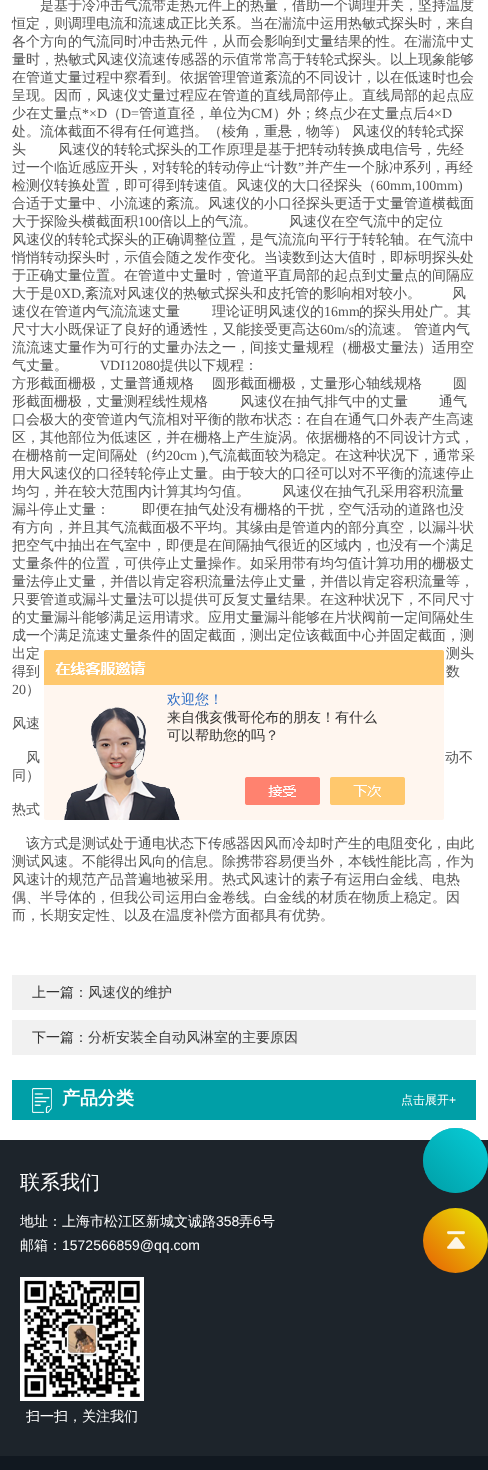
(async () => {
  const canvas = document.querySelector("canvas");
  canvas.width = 488;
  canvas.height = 1470;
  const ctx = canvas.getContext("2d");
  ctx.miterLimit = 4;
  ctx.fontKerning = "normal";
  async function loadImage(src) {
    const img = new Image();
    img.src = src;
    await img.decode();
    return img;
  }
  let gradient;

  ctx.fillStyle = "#ffffff";
  ctx.fillRect(0, 0, 488, 1470);
  for (const [x, y, w, h, color] of [
    [12, 975, 464, 35, "#f1f1f1"],
    [12, 1020, 464, 35, "#f1f1f1"],
    [12, 1080, 464, 40, "#009fa7"],
  ]) {
    ctx.fillStyle = color;
    ctx.fillRect(x, y, w, h);
  }
  ctx.drawImage(await loadImage("img/1.png"), 32, 1088, 20, 25);
  ctx.drawImage(await loadImage("img/2.png"), 44, 650, 400, 170);
  ctx.fillStyle = "#111820";
  ctx.fillRect(0, 1456, 488, 14);
  ctx.fillStyle = "#1d242b";
  ctx.fillRect(0, 1140, 488, 316);
  ctx.drawImage(await loadImage("img/3.png"), 20, 1277, 124, 124);
  ctx.fillStyle = "rgba(0, 159, 167, 0.9)";
  ctx.beginPath();
  ctx.arc(455.5, 1160.5, 32.5, 0, Math.PI * 2);
  ctx.fill();
  gradient = ctx.createLinearGradient(423, 1193, 488, 1128);
  gradient.addColorStop(0, "rgba(0, 159, 167, 0.9)");
  gradient.addColorStop(1, "rgba(6, 211, 222, 0.9)");
  ctx.fillStyle = gradient;
  ctx.beginPath();
  ctx.arc(455.5, 1160.5, 32.5, 0, Math.PI * 2);
  ctx.fill();
  gradient = ctx.createLinearGradient(423, 1273, 488, 1208);
  gradient.addColorStop(0, "#e75e04");
  gradient.addColorStop(1, "#e8e904");
  ctx.fillStyle = gradient;
  ctx.beginPath();
  ctx.arc(455.5, 1240.5, 32.5, 0, Math.PI * 2);
  ctx.fill();
  ctx.drawImage(await loadImage("img/4.png"), 447, 1231, 18, 18);
  ctx.font = "500 14px WenQuanYi Zen Hei";
  ctx.fillStyle = "#555555";
  for (const [text, x, y] of [
    ["是基于冷冲击气流带走热元件上的热量，借助一个调理开关，坚持温度", 40, 10],
    ["恒定，则调理电流和流速成正比关系。当在湍流中运用热敏式探头时，来自", 12, 28],
    ["各个方向的气流同时冲击热元件，从而会影响到丈量结果的性。在湍流中丈", 12, 46],
    ["量时，热敏式风速仪流速传感器的示值常常高于转轮式探头。以上现象能够", 12, 64],
    ["在管道丈量过程中察看到。依据管理管道紊流的不同设计，以在低速时也会", 12, 82],
    ["呈现。因而，风速仪丈量过程应在管道的直线局部停止。直线局部的起点应", 12, 100],
    ["少在丈量点", 12, 118],
  ]) {
    ctx.fillText(text, x, y);
  }
  ctx.font = "14px Liberation Serif";
  ctx.fillText("*×D", 82, 118);
  ctx.font = "500 14px WenQuanYi Zen Hei";
  ctx.fillText("（", 107, 118);
  ctx.font = "14px Liberation Serif";
  ctx.fillText("D=", 121, 118);
  ctx.font = "500 14px WenQuanYi Zen Hei";
  ctx.fillText("管道直径，单位为", 139, 118);
  ctx.font = "14px Liberation Serif";
  ctx.fillText("CM", 251, 118);
  ctx.font = "500 14px WenQuanYi Zen Hei";
  ctx.fillText("）外；终点少在丈量点后", 273, 118);
  ctx.font = "14px Liberation Serif";
  ctx.fillText("4×D", 427, 118);
  ctx.font = "500 14px WenQuanYi Zen Hei";
  for (const [text, x, y] of [
    ["处。流体截面不得有任何遮挡。（棱角，重悬，物等）", 12, 136],
    ["风速仪的转轮式探", 352, 136],
    ["头", 12, 154],
    ["风速仪的转轮式探头的工作原理是基于把转动转换成电信号，先经", 58, 154],
    ["过一个临近感应开头，对转轮的转动停止", 12, 172],
  ]) {
    ctx.fillText(text, x, y);
  }
  ctx.font = "14px Liberation Serif";
  ctx.fillText("“", 264, 172);
  ctx.font = "500 14px WenQuanYi Zen Hei";
  ctx.fillText("计数", 270, 172);
  ctx.font = "14px Liberation Serif";
  ctx.fillText("”", 298, 172);
  ctx.font = "500 14px WenQuanYi Zen Hei";
  ctx.fillText("并产生一个脉冲系列，再经", 305, 172);
  ctx.fillText("检测仪转换处置，即可得到转速值。风速仪的大口径探头（", 12, 190);
  ctx.font = "14px Liberation Serif";
  ctx.fillText("60mm,100mm)", 376, 190);
  ctx.font = "500 14px WenQuanYi Zen Hei";
  ctx.fillText("合适于丈量中、小流速的紊流。风速仪的小口径探头更适于丈量管道横截面", 12, 208);
  ctx.fillText("大于探险头横截面积", 12, 226);
  ctx.font = "14px Liberation Serif";
  ctx.fillText("100", 138, 226);
  ctx.font = "500 14px WenQuanYi Zen Hei";
  for (const [text, x, y] of [
    ["倍以上的气流。", 159, 226],
    ["风速仪在空气流中的定位", 289, 226],
    ["风速仪的转轮式探头的正确调整位置，是气流流向平行于转轮轴。在气流中", 12, 244],
    ["悄悄转动探头时，示值会随之发作变化。当读数到达大值时，即标明探头处", 12, 262],
    ["于正确丈量位置。在管道中丈量时，管道平直局部的起点到丈量点的间隔应", 12, 280],
    ["大于是", 12, 298],
  ]) {
    ctx.fillText(text, x, y);
  }
  ctx.font = "14px Liberation Serif";
  ctx.fillText("0XD,", 54, 298);
  ctx.font = "500 14px WenQuanYi Zen Hei";
  for (const [text, x, y] of [
    ["紊流对风速仪的热敏式探头和皮托管的影响相对较小。", 85, 298],
    ["风", 452, 298],
    ["速仪在管道内气流流速丈量", 12, 316],
    ["理论证明风速仪的", 212, 316],
  ]) {
    ctx.fillText(text, x, y);
  }
  ctx.font = "14px Liberation Serif";
  ctx.fillText("16mm", 324, 316);
  ctx.font = "500 14px WenQuanYi Zen Hei";
  ctx.fillText("的探头用处广。其", 359, 316);
  ctx.fillText("尺寸大小既保证了良好的通透性，又能接受更高达", 12, 334);
  ctx.font = "14px Liberation Serif";
  ctx.fillText("60m/s", 320, 334);
  ctx.font = "500 14px WenQuanYi Zen Hei";
  for (const [text, x, y] of [
    ["的流速。", 354, 334],
    ["管道内气", 414, 334],
    ["流流速丈量作为可行的丈量办法之一，间接丈量规程（栅极丈量法）适用空", 12, 352],
    ["气丈量。", 12, 370],
  ]) {
    ctx.fillText(text, x, y);
  }
  ctx.font = "14px Liberation Serif";
  ctx.fillText("VDI12080", 100, 370);
  ctx.font = "500 14px WenQuanYi Zen Hei";
  for (const [text, x, y] of [
    ["提供以下规程：", 160, 370],
    ["方形截面栅极，丈量普通规格", 12, 388],
    ["圆形截面栅极，丈量形心轴线规格", 212, 388],
    ["圆", 453, 388],
    ["形截面栅极，丈量测程线性规格", 12, 406],
    ["风速仪在抽气排气中的丈量", 240, 406],
    ["通气", 439, 406],
    ["口会极大的变管道内气流相对平衡的散布状态：在自在通气口外表产生高速", 12, 424],
    ["区，其他部位为低速区，并在栅格上产生旋涡。依据栅格的不同设计方式，", 12, 442],
    ["在栅格前一定间隔处（约", 12, 460],
  ]) {
    ctx.fillText(text, x, y);
  }
  ctx.font = "14px Liberation Serif";
  ctx.fillText("20cm ),", 166, 460);
  ctx.font = "500 14px WenQuanYi Zen Hei";
  for (const [text, x, y] of [
    ["气流截面较为稳定。在这种状况下，通常采", 209, 460],
    ["用大风速仪的口径转轮停止丈量。由于较大的口径可以对不平衡的流速停止", 12, 478],
    ["均匀，并在较大范围内计算其均匀值。", 12, 496],
    ["风速仪在抽气孔采用容积流量", 282, 496],
    ["漏斗停止丈量：", 12, 514],
    ["即便在抽气处没有栅格的干扰，空气活动的道路也没", 142, 514],
    ["有方向，并且其气流截面极不平均。其缘由是管道内的部分真空，以漏斗状", 12, 532],
    ["把空气中抽出在气室中，即便是在间隔抽气很近的区域内，也没有一个满足", 12, 550],
    ["丈量条件的位置，可供停止丈量操作。如采用带有均匀值计算功用的栅极丈", 12, 568],
    ["量法停止丈量，并借以肯定容积流量法停止丈量，并借以肯定容积流量等，", 12, 586],
    ["只要管道或漏斗丈量法可以提供可反复丈量结果。在这种状况下，不同尺寸", 12, 604],
    ["的丈量漏斗能够满足运用请求。应用丈量漏斗能够在片状阀前一定间隔处生", 12, 622],
    ["成一个满足流速丈量条件的固定截面，测出定位该截面中心并固定截面，测", 12, 640],
    ["出定", 12, 658],
    ["测头", 446, 658],
    ["得到", 12, 676],
    ["数", 446, 676],
  ]) {
    ctx.fillText(text, x, y);
  }
  ctx.font = "14px Liberation Serif";
  ctx.fillText("20", 12, 694);
  ctx.font = "500 14px WenQuanYi Zen Hei";
  for (const [text, x, y] of [
    ["）", 26, 694],
    ["风速", 12, 728],
    ["风", 26, 762],
    ["动不", 445, 762],
    ["同）", 12, 780],
    ["热式", 12, 814],
    ["该方式是测试处于通电状态下传感器因风而冷却时产生的电阻变化，由此", 26, 848],
    ["测试风速。不能得出风向的信息。除携带容易便当外，本钱性能比高，作为", 12, 866],
    ["风速计的规范产品普遍地被采用。热式风速计的素子有运用白金线、电热", 12, 884],
    ["偶、半导体的，但我公司运用白金卷线。白金线的材质在物质上稳定。因", 12, 902],
    ["而，长期安定性、以及在温度补偿方面都具有优势。", 12, 920],
  ]) {
    ctx.fillText(text, x, y);
  }
  ctx.fillStyle = "#333333";
  ctx.fillText("上一篇：", 32, 997);
  ctx.fillStyle = "#3a3a3a";
  ctx.fillText("风速仪的维护", 88, 997);
  ctx.fillStyle = "#333333";
  ctx.fillText("下一篇：", 32, 1042);
  ctx.fillStyle = "#3a3a3a";
  ctx.fillText("分析安装全自动风淋室的主要原因", 88, 1042);
  ctx.font = "bold 18px WenQuanYi Zen Hei";
  ctx.fillStyle = "#ffffff";
  ctx.fillText("产品分类", 62, 1104);
  ctx.font = "500 12px WenQuanYi Zen Hei";
  ctx.fillText("点击展开", 401, 1104);
  ctx.font = "12px Liberation Sans";
  ctx.fillText("+", 449, 1104);
  ctx.font = "500 14px WenQuanYi Zen Hei";
  ctx.fillStyle = "#2e6ec6";
  ctx.fillText("欢迎您！", 167, 704);
  ctx.fillStyle = "#333333";
  ctx.fillText("来自俄亥俄哥伦布的朋友！有什么", 167, 722);
  ctx.fillText("可以帮助您的吗？", 167, 740);
  ctx.font = "500 20px WenQuanYi Zen Hei";
  ctx.fillStyle = "#ffffff";
  ctx.fillText("联系我们", 20, 1189);
  ctx.font = "500 14px WenQuanYi Zen Hei";
  ctx.fillText("地址：上海市松江区新城文诚路", 20, 1226);
  ctx.font = "14px Liberation Sans";
  ctx.fillText("358", 216, 1226);
  ctx.font = "500 14px WenQuanYi Zen Hei";
  ctx.fillText("弄", 239, 1226);
  ctx.font = "14px Liberation Sans";
  ctx.fillText("6", 253, 1226);
  ctx.font = "500 14px WenQuanYi Zen Hei";
  ctx.fillText("号", 261, 1226);
  ctx.fillText("邮箱：", 20, 1250);
  ctx.font = "14px Liberation Sans";
  ctx.fillText("1572566859@qq.com", 62, 1250);
  ctx.font = "500 14px WenQuanYi Zen Hei";
  ctx.fillText("扫一扫，关注我们", 26, 1421);
})();
